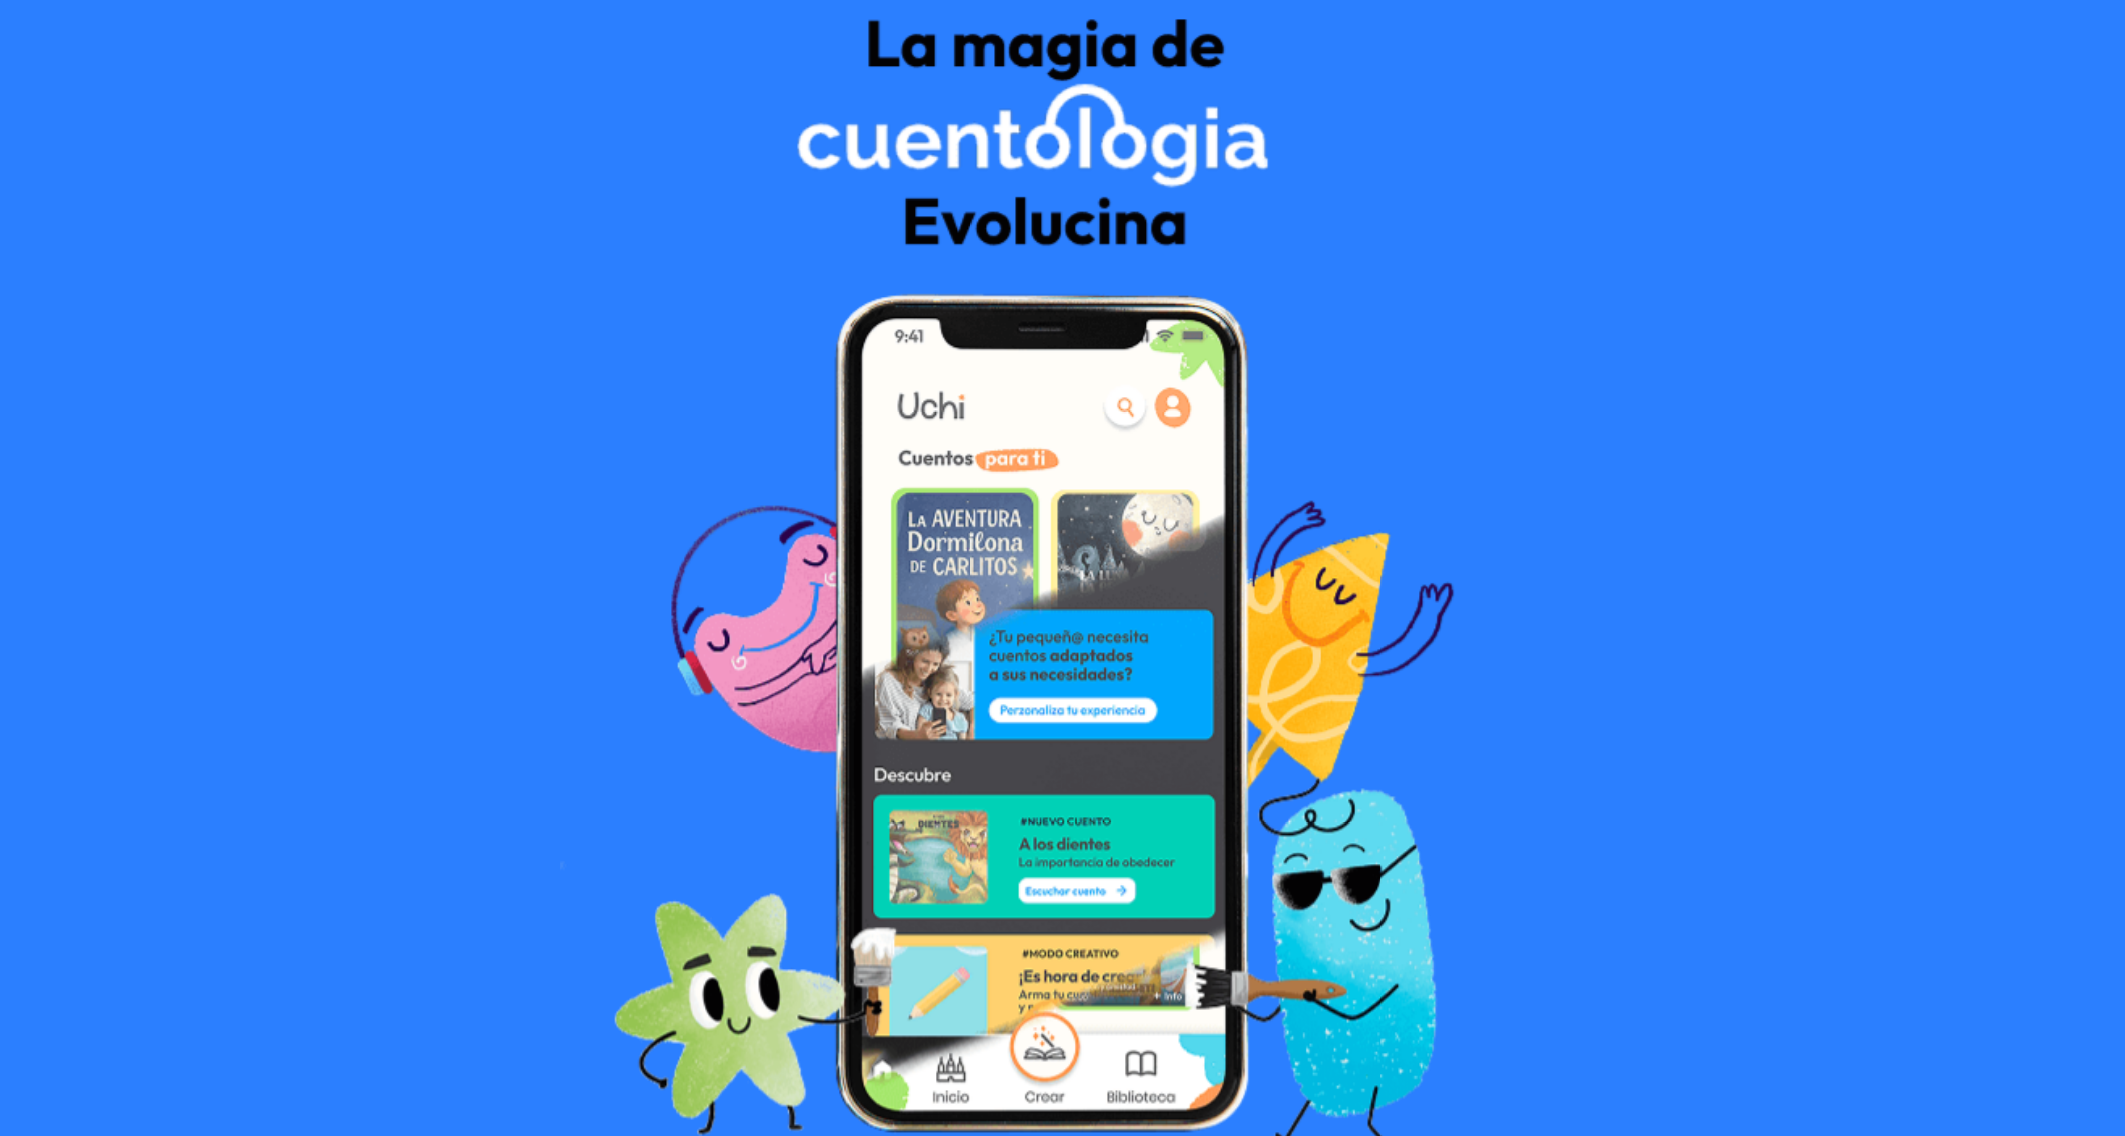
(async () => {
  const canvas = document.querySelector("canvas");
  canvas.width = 2125;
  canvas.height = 1136;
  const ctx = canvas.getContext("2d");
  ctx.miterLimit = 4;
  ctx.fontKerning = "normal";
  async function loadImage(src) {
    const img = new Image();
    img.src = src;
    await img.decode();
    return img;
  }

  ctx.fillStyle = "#2b7fff";
  ctx.fillRect(0, 0, 2125, 1136);
  ctx.drawImage(await loadImage("img/1.png"), 560, 19, 895, 1117);
})();
